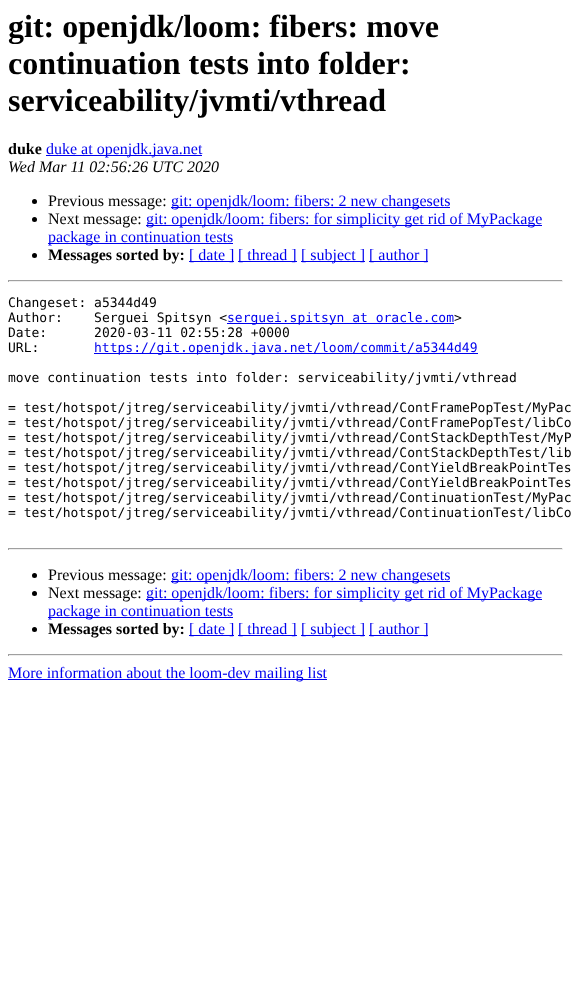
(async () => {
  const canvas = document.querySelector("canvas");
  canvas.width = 571;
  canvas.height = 984;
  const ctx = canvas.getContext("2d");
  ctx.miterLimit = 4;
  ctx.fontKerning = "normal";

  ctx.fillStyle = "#ffffff";
  ctx.fillRect(0, 0, 571, 984);
  ctx.fillStyle = "#0000ee";
  ctx.fillRect(46, 155, 156, 1);
  ctx.fillStyle = "#000000";
  ctx.beginPath();
  ctx.arc(34.5, 201.5, 2.5, 0, Math.PI * 2);
  ctx.fill();
  ctx.fillStyle = "#0000ee";
  ctx.fillRect(171, 207, 279, 1);
  ctx.fillStyle = "#000000";
  ctx.beginPath();
  ctx.arc(34.5, 219.5, 2.5, 0, Math.PI * 2);
  ctx.fill();
  ctx.fillStyle = "#0000ee";
  ctx.fillRect(146, 225, 396, 1);
  ctx.fillRect(48, 243, 185, 1);
  ctx.fillStyle = "#000000";
  ctx.beginPath();
  ctx.arc(34.5, 255.5, 2.5, 0, Math.PI * 2);
  ctx.fill();
  for (const [x, y, w, h, color] of [
    [189, 261, 45, 1, "#0000ee"],
    [238, 261, 59, 1, "#0000ee"],
    [301, 261, 64, 1, "#0000ee"],
    [369, 261, 59, 1, "#0000ee"],
    [8, 280, 555, 1, "#9f9f9f"],
    [562, 280, 1, 2, "#eeeeee"],
    [8, 281, 555, 1, "#eeeeee"],
    [8, 280, 1, 2, "#9f9f9f"],
    [227, 323, 227, 1, "#0000ee"],
    [94, 353, 384, 1, "#0000ee"],
    [8, 548, 555, 1, "#9f9f9f"],
    [562, 548, 1, 2, "#eeeeee"],
    [8, 549, 555, 1, "#eeeeee"],
    [8, 548, 1, 2, "#9f9f9f"],
  ]) {
    ctx.fillStyle = color;
    ctx.fillRect(x, y, w, h);
  }
  ctx.fillStyle = "#000000";
  ctx.beginPath();
  ctx.arc(34.5, 575.5, 2.5, 0, Math.PI * 2);
  ctx.fill();
  ctx.fillStyle = "#0000ee";
  ctx.fillRect(171, 581, 279, 1);
  ctx.fillStyle = "#000000";
  ctx.beginPath();
  ctx.arc(34.5, 593.5, 2.5, 0, Math.PI * 2);
  ctx.fill();
  ctx.fillStyle = "#0000ee";
  ctx.fillRect(146, 599, 396, 1);
  ctx.fillRect(48, 617, 185, 1);
  ctx.fillStyle = "#000000";
  ctx.beginPath();
  ctx.arc(34.5, 629.5, 2.5, 0, Math.PI * 2);
  ctx.fill();
  for (const [x, y, w, h, color] of [
    [189, 635, 45, 1, "#0000ee"],
    [238, 635, 59, 1, "#0000ee"],
    [301, 635, 64, 1, "#0000ee"],
    [369, 635, 59, 1, "#0000ee"],
    [8, 654, 555, 1, "#9f9f9f"],
    [562, 654, 1, 2, "#eeeeee"],
    [8, 655, 555, 1, "#eeeeee"],
    [8, 654, 1, 2, "#9f9f9f"],
    [8, 679, 319, 1, "#0000ee"],
  ]) {
    ctx.fillStyle = color;
    ctx.fillRect(x, y, w, h);
  }
  ctx.font = "bold 32px Liberation Serif";
  ctx.fillStyle = "#000000";
  for (const [text, x, y] of [
    ["git: openjdk/loom: fibers: move", 8, 37],
    ["continuation tests into folder:", 8, 74],
    ["serviceability/jvmti/vthread", 8, 111],
  ]) {
    ctx.fillText(text, x, y);
  }
  ctx.font = "bold 16px Liberation Serif";
  ctx.fillText("duke", 8, 154);
  ctx.font = "16px Liberation Serif";
  ctx.fillStyle = "#0000ee";
  ctx.fillText("duke at openjdk.java.net", 46, 154);
  ctx.font = "italic 16px Liberation Serif";
  ctx.fillStyle = "#000000";
  ctx.fillText("Wed Mar 11 02:56:26 UTC 2020", 8, 172);
  ctx.font = "16px Liberation Serif";
  ctx.fillText("Previous message:", 48, 206);
  ctx.fillStyle = "#0000ee";
  ctx.fillText("git: openjdk/loom: fibers: 2 new changesets", 171, 206);
  ctx.fillStyle = "#000000";
  ctx.fillText("Next message:", 48, 224);
  ctx.fillStyle = "#0000ee";
  ctx.fillText("git: openjdk/loom: fibers: for simplicity get rid of MyPackage", 146, 224);
  ctx.fillText("package in continuation tests", 48, 242);
  ctx.font = "bold 16px Liberation Serif";
  ctx.fillStyle = "#000000";
  ctx.fillText("Messages sorted by:", 48, 260);
  ctx.font = "16px Liberation Serif";
  ctx.fillStyle = "#0000ee";
  for (const [text, x, y] of [
    ["[ date ]", 189, 260],
    ["[ thread ]", 238, 260],
    ["[ subject ]", 301, 260],
    ["[ author ]", 369, 260],
  ]) {
    ctx.fillText(text, x, y);
  }
  ctx.font = "13px DejaVu Sans Mono";
  ctx.fillStyle = "#000000";
  ctx.fillText("Changeset: a5344d49", 8, 307);
  ctx.fillText("Author:    Serguei Spitsyn <", 8, 322);
  ctx.fillStyle = "#0000ee";
  ctx.fillText("serguei.spitsyn at oracle.com", 227, 322);
  ctx.fillStyle = "#000000";
  for (const [text, x, y] of [
    [">", 454, 322],
    ["Date:      2020-03-11 02:55:28 +0000", 8, 337],
    ["URL:", 8, 352],
  ]) {
    ctx.fillText(text, x, y);
  }
  ctx.fillStyle = "#0000ee";
  ctx.fillText("https://git.openjdk.java.net/loom/commit/a5344d49", 94, 352);
  ctx.fillStyle = "#000000";
  for (const [text, x, y] of [
    ["move continuation tests into folder: serviceability/jvmti/vthread", 8, 382],
    ["= test/hotspot/jtreg/serviceability/jvmti/vthread/ContFramePopTest/MyPac", 8, 412],
    ["= test/hotspot/jtreg/serviceability/jvmti/vthread/ContFramePopTest/libCo", 8, 427],
    ["= test/hotspot/jtreg/serviceability/jvmti/vthread/ContStackDepthTest/MyP", 8, 442],
    ["= test/hotspot/jtreg/serviceability/jvmti/vthread/ContStackDepthTest/lib", 8, 457],
    ["= test/hotspot/jtreg/serviceability/jvmti/vthread/ContYieldBreakPointTes", 8, 472],
    ["= test/hotspot/jtreg/serviceability/jvmti/vthread/ContYieldBreakPointTes", 8, 487],
    ["= test/hotspot/jtreg/serviceability/jvmti/vthread/ContinuationTest/MyPac", 8, 502],
    ["= test/hotspot/jtreg/serviceability/jvmti/vthread/ContinuationTest/libCo", 8, 517],
  ]) {
    ctx.fillText(text, x, y);
  }
  ctx.font = "16px Liberation Serif";
  ctx.fillText("Previous message:", 48, 580);
  ctx.fillStyle = "#0000ee";
  ctx.fillText("git: openjdk/loom: fibers: 2 new changesets", 171, 580);
  ctx.fillStyle = "#000000";
  ctx.fillText("Next message:", 48, 598);
  ctx.fillStyle = "#0000ee";
  ctx.fillText("git: openjdk/loom: fibers: for simplicity get rid of MyPackage", 146, 598);
  ctx.fillText("package in continuation tests", 48, 616);
  ctx.font = "bold 16px Liberation Serif";
  ctx.fillStyle = "#000000";
  ctx.fillText("Messages sorted by:", 48, 634);
  ctx.font = "16px Liberation Serif";
  ctx.fillStyle = "#0000ee";
  for (const [text, x, y] of [
    ["[ date ]", 189, 634],
    ["[ thread ]", 238, 634],
    ["[ subject ]", 301, 634],
    ["[ author ]", 369, 634],
    ["More information about the loom-dev mailing list", 8, 678],
  ]) {
    ctx.fillText(text, x, y);
  }
})();
